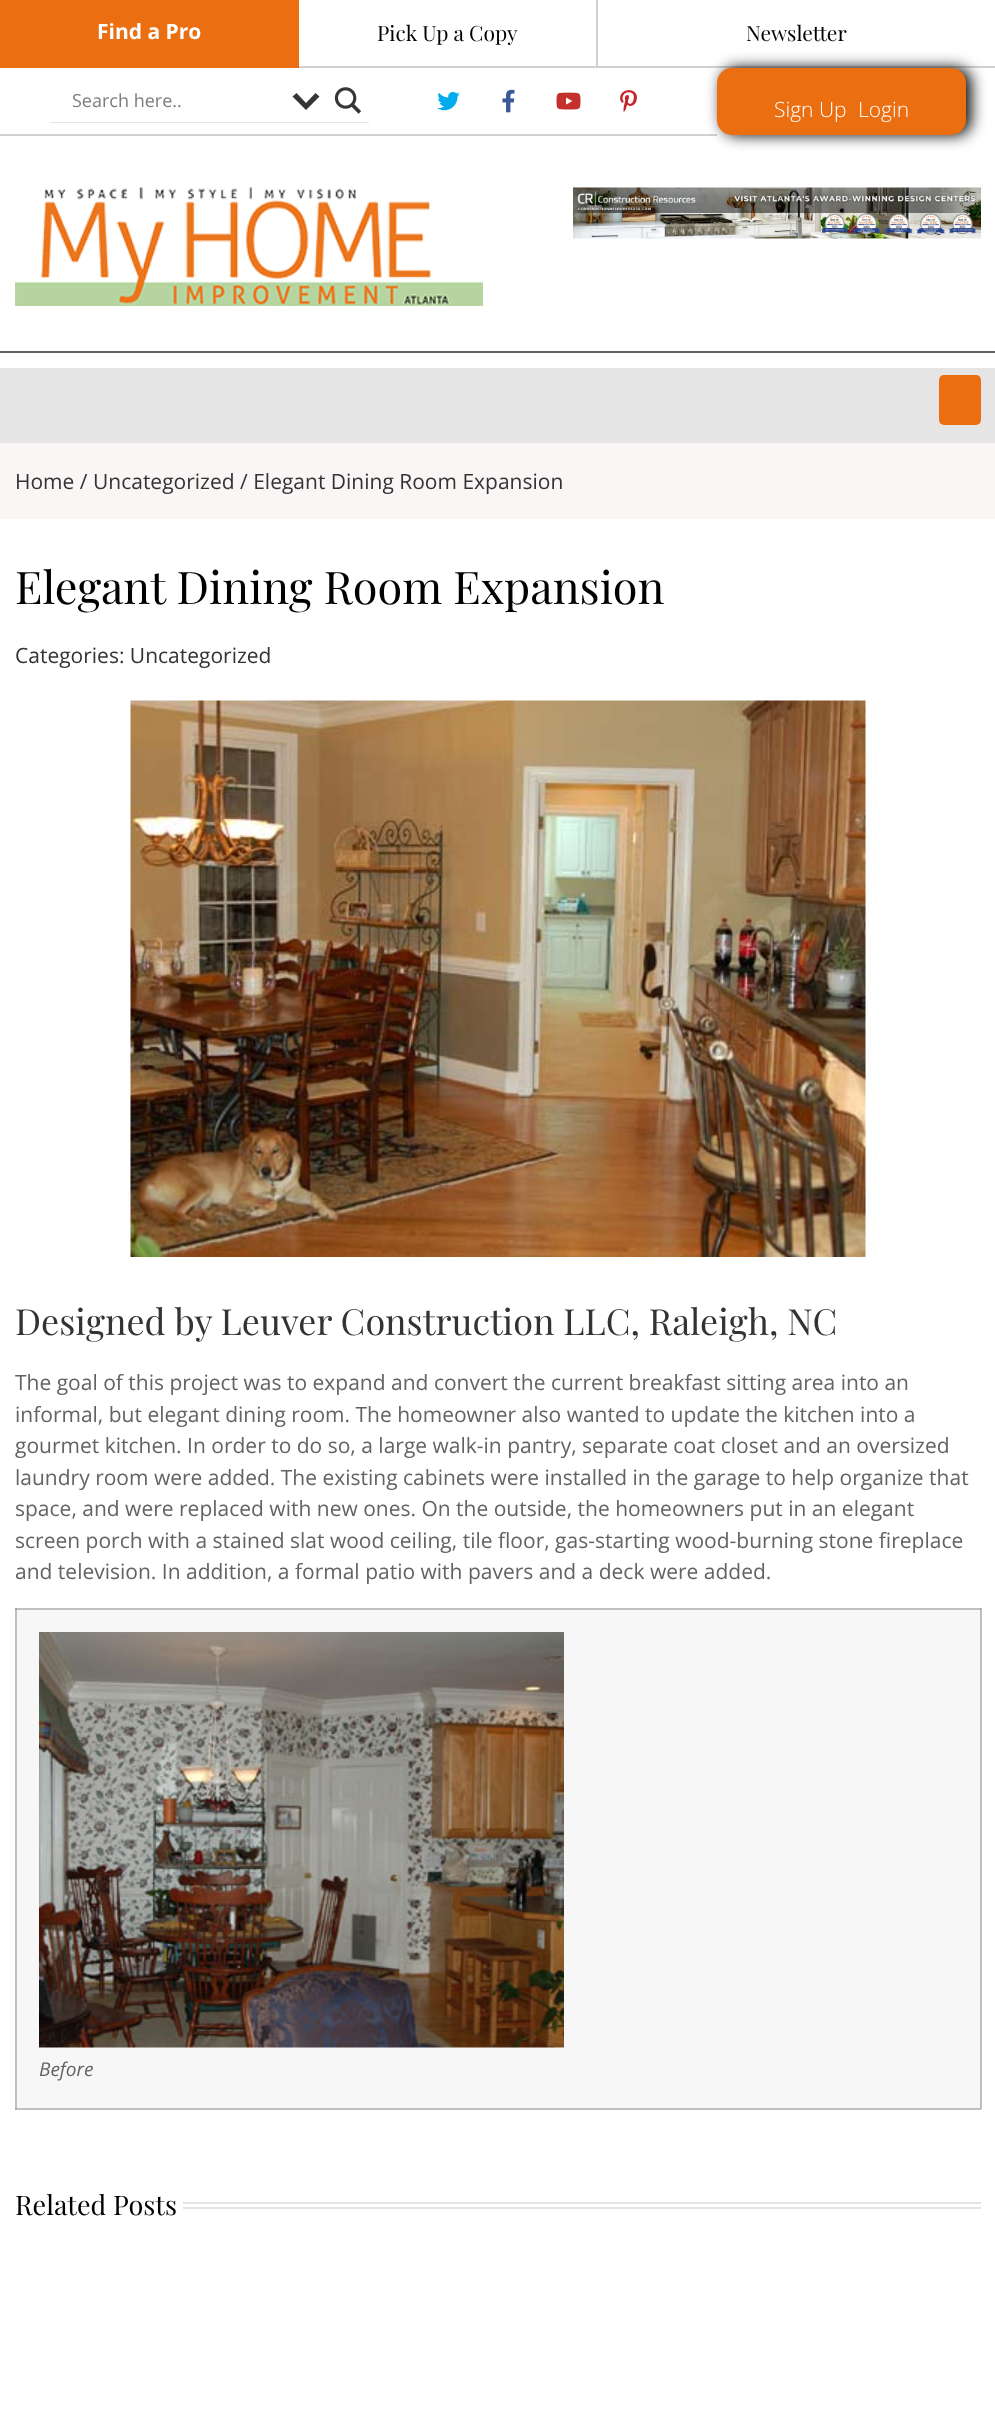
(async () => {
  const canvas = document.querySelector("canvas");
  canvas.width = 995;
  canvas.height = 2411;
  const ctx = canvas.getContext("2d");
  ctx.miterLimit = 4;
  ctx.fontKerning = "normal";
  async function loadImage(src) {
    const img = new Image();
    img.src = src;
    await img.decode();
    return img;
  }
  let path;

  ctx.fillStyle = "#ffffff";
  ctx.fillRect(0, 0, 995, 2411);
  for (const [x, y, w, h, color] of [
    [15, 1608, 2, 501, "#c0c0c0"],
    [15, 2108, 966, 2, "#c0c0c0"],
    [15, 2108, 2, 1, "#a0a0a0"],
    [981, 1608, 1, 501, "#c0c0c0"],
    [980, 2108, 1, 1, "#a0a0a0"],
    [299, 66, 696, 2, "#d3d0d0"],
    [0, 0, 299, 68, "#eb6e11"],
    [596, 0, 2, 68, "#d3d0d0"],
    [50, 122, 319, 1, "#e4e4e4"],
  ]) {
    ctx.fillStyle = color;
    ctx.fillRect(x, y, w, h);
  }
  ctx.fillStyle = "#363636";
  path = new Path2D("M315.5 93L319.5 96.5L306 110L292.5 96.5L296.5 93L306 103Z");
  ctx.fill(path);
  ctx.drawImage(await loadImage("img/1.png"), 334, 87, 28, 27);
  ctx.drawImage(await loadImage("img/2.png"), 437, 91, 23, 20);
  ctx.drawImage(await loadImage("img/3.png"), 502, 89, 13, 24);
  ctx.drawImage(await loadImage("img/4.png"), 556, 92, 25, 18);
  ctx.drawImage(await loadImage("img/5.png"), 620, 90, 17, 22);
  ctx.fillStyle = "#d3d0d0";
  ctx.fillRect(0, 134, 717, 2);
  ctx.fillStyle = "#000000";
  ctx.filter = "blur(7.5px)";
  ctx.beginPath();
  ctx.roundRect(722, 68, 249, 67, 15);
  ctx.fill();
  ctx.filter = "none";
  ctx.fillStyle = "#eb6e11";
  ctx.beginPath();
  ctx.roundRect(717, 68, 249, 67, 15);
  ctx.fill();
  ctx.fillStyle = "#636363";
  ctx.fillRect(0, 351, 995, 2);
  ctx.drawImage(await loadImage("img/6.png"), 15, 187, 468, 119);
  ctx.drawImage(await loadImage("img/7.png"), 573, 187, 408, 52);
  ctx.fillStyle = "#e5e5e5";
  ctx.fillRect(0, 368, 995, 75);
  ctx.fillStyle = "#eb6e11";
  ctx.beginPath();
  ctx.roundRect(939, 375, 42, 50, 5);
  ctx.fill();
  ctx.fillStyle = "#fbf6f6";
  ctx.fillRect(0, 443, 995, 76);
  ctx.drawImage(await loadImage("img/8.png"), 130, 700, 736, 557);
  for (const [x, y, w, h, color] of [
    [17, 1610, 963, 498, "#f7f7f7"],
    [980, 1610, 1, 498, "#bcbcbc"],
    [15, 1608, 966, 2, "#c0c0c0"],
    [15, 1608, 2, 2, "#a0a0a0"],
    [980, 1608, 1, 2, "#a0a0a0"],
  ]) {
    ctx.fillStyle = color;
    ctx.fillRect(x, y, w, h);
  }
  ctx.drawImage(await loadImage("img/9.png"), 39, 1632, 525, 416);
  ctx.fillStyle = "#e5e5e5";
  ctx.fillRect(183, 2202, 798, 2);
  ctx.fillRect(183, 2207, 798, 2);
  ctx.font = "bold 21px Open Sans";
  ctx.fillStyle = "#ffffff";
  ctx.fillText("Find a Pro", 97, 39);
  ctx.font = "21px Playfair Display";
  ctx.fillStyle = "#000000";
  ctx.fillText("Pick Up a Copy", 377, 41);
  ctx.fillText("Newsletter", 746, 41);
  ctx.font = "18px Open Sans";
  ctx.fillStyle = "#7d7d7d";
  ctx.fillText("Search here..", 72, 107);
  ctx.font = "300 21px Open Sans";
  ctx.fillStyle = "#ffffff";
  ctx.fillText("Sign Up", 774, 117);
  ctx.fillText("Login", 858, 117);
  ctx.font = "21px Open Sans";
  ctx.fillStyle = "#333333";
  ctx.fillText("Home / Uncategorized / Elegant Dining Room Expansion", 15, 489);
  ctx.font = "45px Playfair Display";
  ctx.fillStyle = "#000000";
  ctx.fillText("Elegant Dining Room Expansion", 15, 604);
  ctx.font = "21px Open Sans";
  ctx.fillStyle = "#333333";
  ctx.fillText("Categories: Uncategorized", 15, 663);
  ctx.font = "36px Playfair Display";
  ctx.fillText("Designed by Leuver Construction LLC, Raleigh, NC", 15, 1335);
  ctx.font = "21px Open Sans";
  ctx.fillStyle = "#636363";
  for (const [text, x, y] of [
    ["The goal of this project was to expand and convert the current breakfast sitting area into an", 15, 1390],
    ["informal, but elegant dining room. The homeowner also wanted to update the kitchen into a", 15, 1422],
    ["gourmet kitchen. In order to do so, a large walk-in pantry, separate coat closet and an oversized", 15, 1453],
    ["laundry room were added. The existing cabinets were installed in the garage to help organize that", 15, 1485],
    ["space, and were replaced with new ones. On the outside, the homeowners put in an elegant", 15, 1516],
    ["screen porch with a stained slat wood ceiling, tile floor, gas-starting wood-burning stone fireplace", 15, 1548],
    ["and television. In addition, a formal patio with pavers and a deck were added.", 15, 1579],
  ]) {
    ctx.fillText(text, x, y);
  }
  ctx.font = "italic 19px Open Sans";
  ctx.fillText("Before", 39, 2076);
  ctx.font = "27px Playfair Display";
  ctx.fillStyle = "#000000";
  ctx.fillText("Related Posts", 15, 2215);
})();
